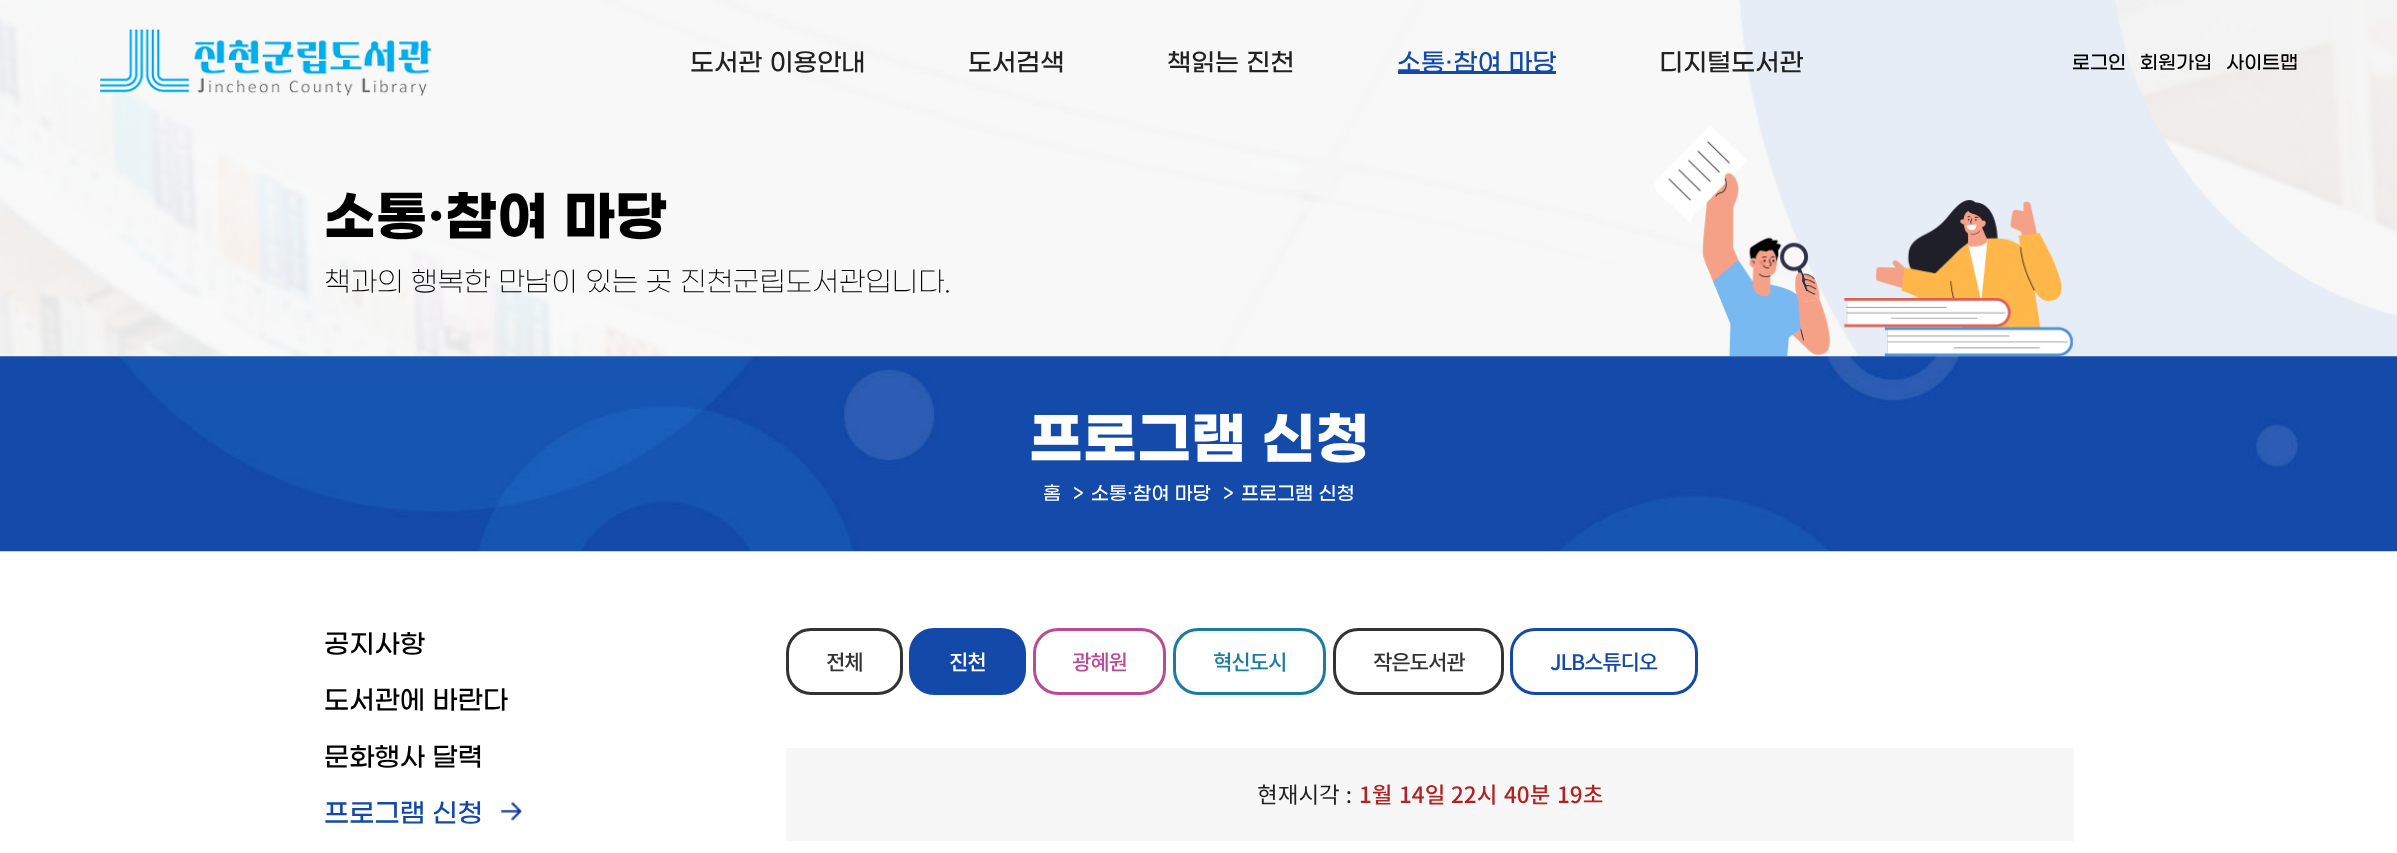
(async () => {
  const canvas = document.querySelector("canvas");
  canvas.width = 2397;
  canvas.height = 853;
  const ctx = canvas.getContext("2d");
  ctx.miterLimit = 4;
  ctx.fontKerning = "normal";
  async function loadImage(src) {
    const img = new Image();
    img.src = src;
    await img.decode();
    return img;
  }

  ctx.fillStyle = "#ffffff";
  ctx.fillRect(0, 0, 2397, 853);
  ctx.drawImage(await loadImage("img/2.png"), 0, 0, 2397, 357);
  ctx.drawImage(await loadImage("img/1.png"), 100, 28, 332, 69);
  ctx.fillStyle = "#134aa9";
  ctx.fillRect(1398, 71, 158, 3);
  ctx.drawImage(await loadImage("img/3.png"), 1655, 125, 418, 232);
  ctx.drawImage(await loadImage("img/4.png"), 0, 356, 2397, 196);
  ctx.drawImage(await loadImage("img/5.png"), 501, 801, 21, 20);
  ctx.beginPath();
  ctx.roundRect(787.5, 629.5, 114, 64, 23.5);
  ctx.strokeStyle = "#333333";
  ctx.lineWidth = 3;
  ctx.stroke();
  ctx.beginPath();
  ctx.roundRect(910.5, 629.5, 114, 64, 23.5);
  ctx.fill();
  ctx.strokeStyle = "#134aa9";
  ctx.stroke();
  ctx.beginPath();
  ctx.roundRect(1034.5, 629.5, 130, 64, 23.5);
  ctx.strokeStyle = "#b84c97";
  ctx.stroke();
  ctx.beginPath();
  ctx.roundRect(1174.5, 629.5, 150, 64, 23.5);
  ctx.strokeStyle = "#1a7ca0";
  ctx.stroke();
  ctx.beginPath();
  ctx.roundRect(1334.5, 629.5, 168, 64, 23.5);
  ctx.strokeStyle = "#333333";
  ctx.stroke();
  ctx.beginPath();
  ctx.roundRect(1511.5, 629.5, 185, 64, 23.5);
  ctx.strokeStyle = "#134aa9";
  ctx.stroke();
  ctx.fillStyle = "#f6f7f6";
  ctx.fillRect(786, 748, 1288, 93);
  ctx.font = "500 25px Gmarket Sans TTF";
  ctx.fillStyle = "#222222";
  for (const [text, x, y] of [
    ["도서관 이용안내", 690, 70],
    ["도서검색", 968, 70],
    ["책읽는 진천", 1167, 70],
  ]) {
    ctx.fillText(text, x, y);
  }
  ctx.fillStyle = "#134aa9";
  ctx.fillText("소통·참여 마당", 1397, 70);
  ctx.fillStyle = "#222222";
  ctx.fillText("디지털도서관", 1659, 70);
  ctx.font = "500 18.75px Gmarket Sans TTF";
  ctx.fillStyle = "#000000";
  for (const [text, x, y] of [
    ["로그인", 2072, 68],
    ["회원가입", 2140, 68],
    ["사이트맵", 2226, 68],
  ]) {
    ctx.fillText(text, x, y);
  }
  ctx.font = "bold 53.75px Gmarket Sans TTF";
  ctx.fillText("소통·참여 마당", 324, 233);
  ctx.font = "300 27.5px Gmarket Sans TTF";
  ctx.fillText("책과의 행복한 만남이 있는 곳 진천군립도서관입니다.", 324, 290);
  ctx.font = "bold 56.25px Gmarket Sans TTF";
  ctx.fillStyle = "#ffffff";
  ctx.fillText("프로그램 신청", 1029, 456);
  ctx.font = "500 18.75px Gmarket Sans TTF";
  for (const [text, x, y] of [
    ["홈", 1043, 499],
    [">", 1073, 499],
    ["소통·참여 마당", 1091, 499],
    [">", 1223, 499],
    ["프로그램 신청", 1241, 499],
  ]) {
    ctx.fillText(text, x, y);
  }
  ctx.font = "500 26.25px Gmarket Sans TTF";
  ctx.fillStyle = "#000000";
  for (const [text, x, y] of [
    ["공지사항", 324, 652],
    ["도서관에 바란다", 324, 708],
    ["문화행사 달력", 324, 765],
  ]) {
    ctx.fillText(text, x, y);
  }
  ctx.fillStyle = "#134aa9";
  ctx.fillText("프로그램 신청", 324, 821);
  ctx.letterSpacing = "-1.25px";
  ctx.font = "500 21.25px Noto Sans KR";
  ctx.fillStyle = "#333333";
  ctx.fillText("전체", 826, 670);
  ctx.fillStyle = "#ffffff";
  ctx.fillText("진천", 949, 670);
  ctx.fillStyle = "#b84c97";
  ctx.fillText("광혜원", 1072, 670);
  ctx.fillStyle = "#1a7ca0";
  ctx.fillText("혁신도시", 1213, 670);
  ctx.fillStyle = "#333333";
  ctx.fillText("작은도서관", 1373, 670);
  ctx.fillStyle = "#134aa9";
  ctx.fillText("JLB스튜디오", 1550, 670);
  ctx.letterSpacing = "0px";
  ctx.wordSpacing = "1px";
  ctx.font = "22.5px Noto Sans KR";
  ctx.fillStyle = "#222222";
  ctx.fillText("현재시각 :", 1257, 803);
  ctx.wordSpacing = "0px";
  ctx.font = "500 22.5px Noto Sans KR";
  ctx.fillStyle = "#b02323";
  for (const [text, x, y] of [
    ["1월", 1359, 803],
    ["14일", 1399, 803],
    ["22시", 1451, 803],
    ["40분", 1504, 803],
    ["19초", 1557, 803],
  ]) {
    ctx.fillText(text, x, y);
  }
})();
